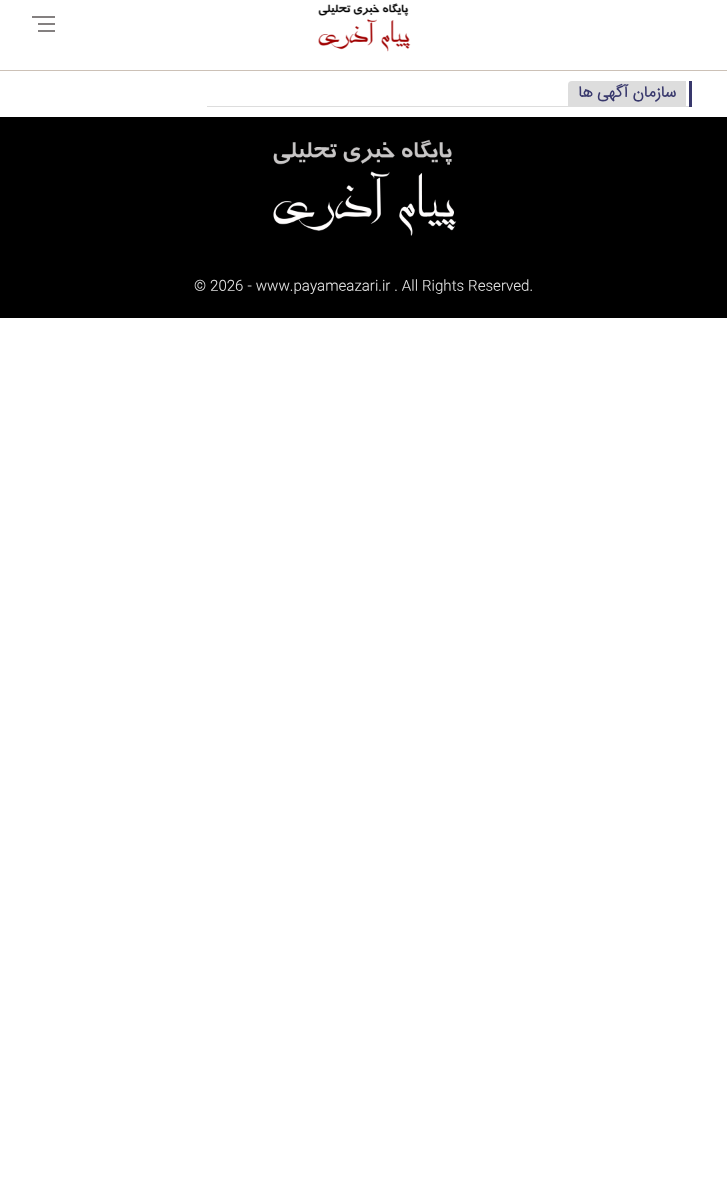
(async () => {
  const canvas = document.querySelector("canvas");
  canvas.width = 727;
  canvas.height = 1186;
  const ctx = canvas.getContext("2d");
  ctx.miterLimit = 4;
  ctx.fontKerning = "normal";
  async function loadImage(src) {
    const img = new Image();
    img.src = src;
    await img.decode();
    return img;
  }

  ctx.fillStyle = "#ffffff";
  ctx.fillRect(0, 0, 727, 1186);
  for (const [x, y, w, h, color] of [
    [38, 23, 17, 2, "#848080"],
    [32, 16, 23, 2, "#848080"],
    [38, 30, 17, 2, "#848080"],
  ]) {
    ctx.fillStyle = color;
    ctx.fillRect(x, y, w, h);
  }
  ctx.drawImage(await loadImage("img/1.png"), 318, 3, 93, 49);
  ctx.fillStyle = "#ccc1b7";
  ctx.fillRect(0, 70, 727, 1);
  ctx.fillStyle = "#dddddd";
  ctx.fillRect(207, 106, 485, 1);
  ctx.beginPath();
  ctx.roundRect(568, 81, 118, 26, [4, 0, 0, 0]);
  ctx.fill();
  ctx.fillStyle = "#38386c";
  ctx.fillRect(689, 81, 3, 26);
  ctx.fillStyle = "#000000";
  ctx.fillRect(0, 117, 727, 201);
  ctx.drawImage(await loadImage("img/2.png"), 273, 139, 184, 97);
  ctx.direction = "rtl";
  ctx.font = "bold 16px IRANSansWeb";
  ctx.fillStyle = "#38386c";
  ctx.fillText("سازمان آگهی ها", 676, 97);
  ctx.direction = "ltr";
  ctx.font = "300 14px IRANSansWeb";
  ctx.fillStyle = "#dddddd";
  ctx.fillText("© 2026 - www.payameazari.ir . All Rights Reserved.", 194, 290);
})();
